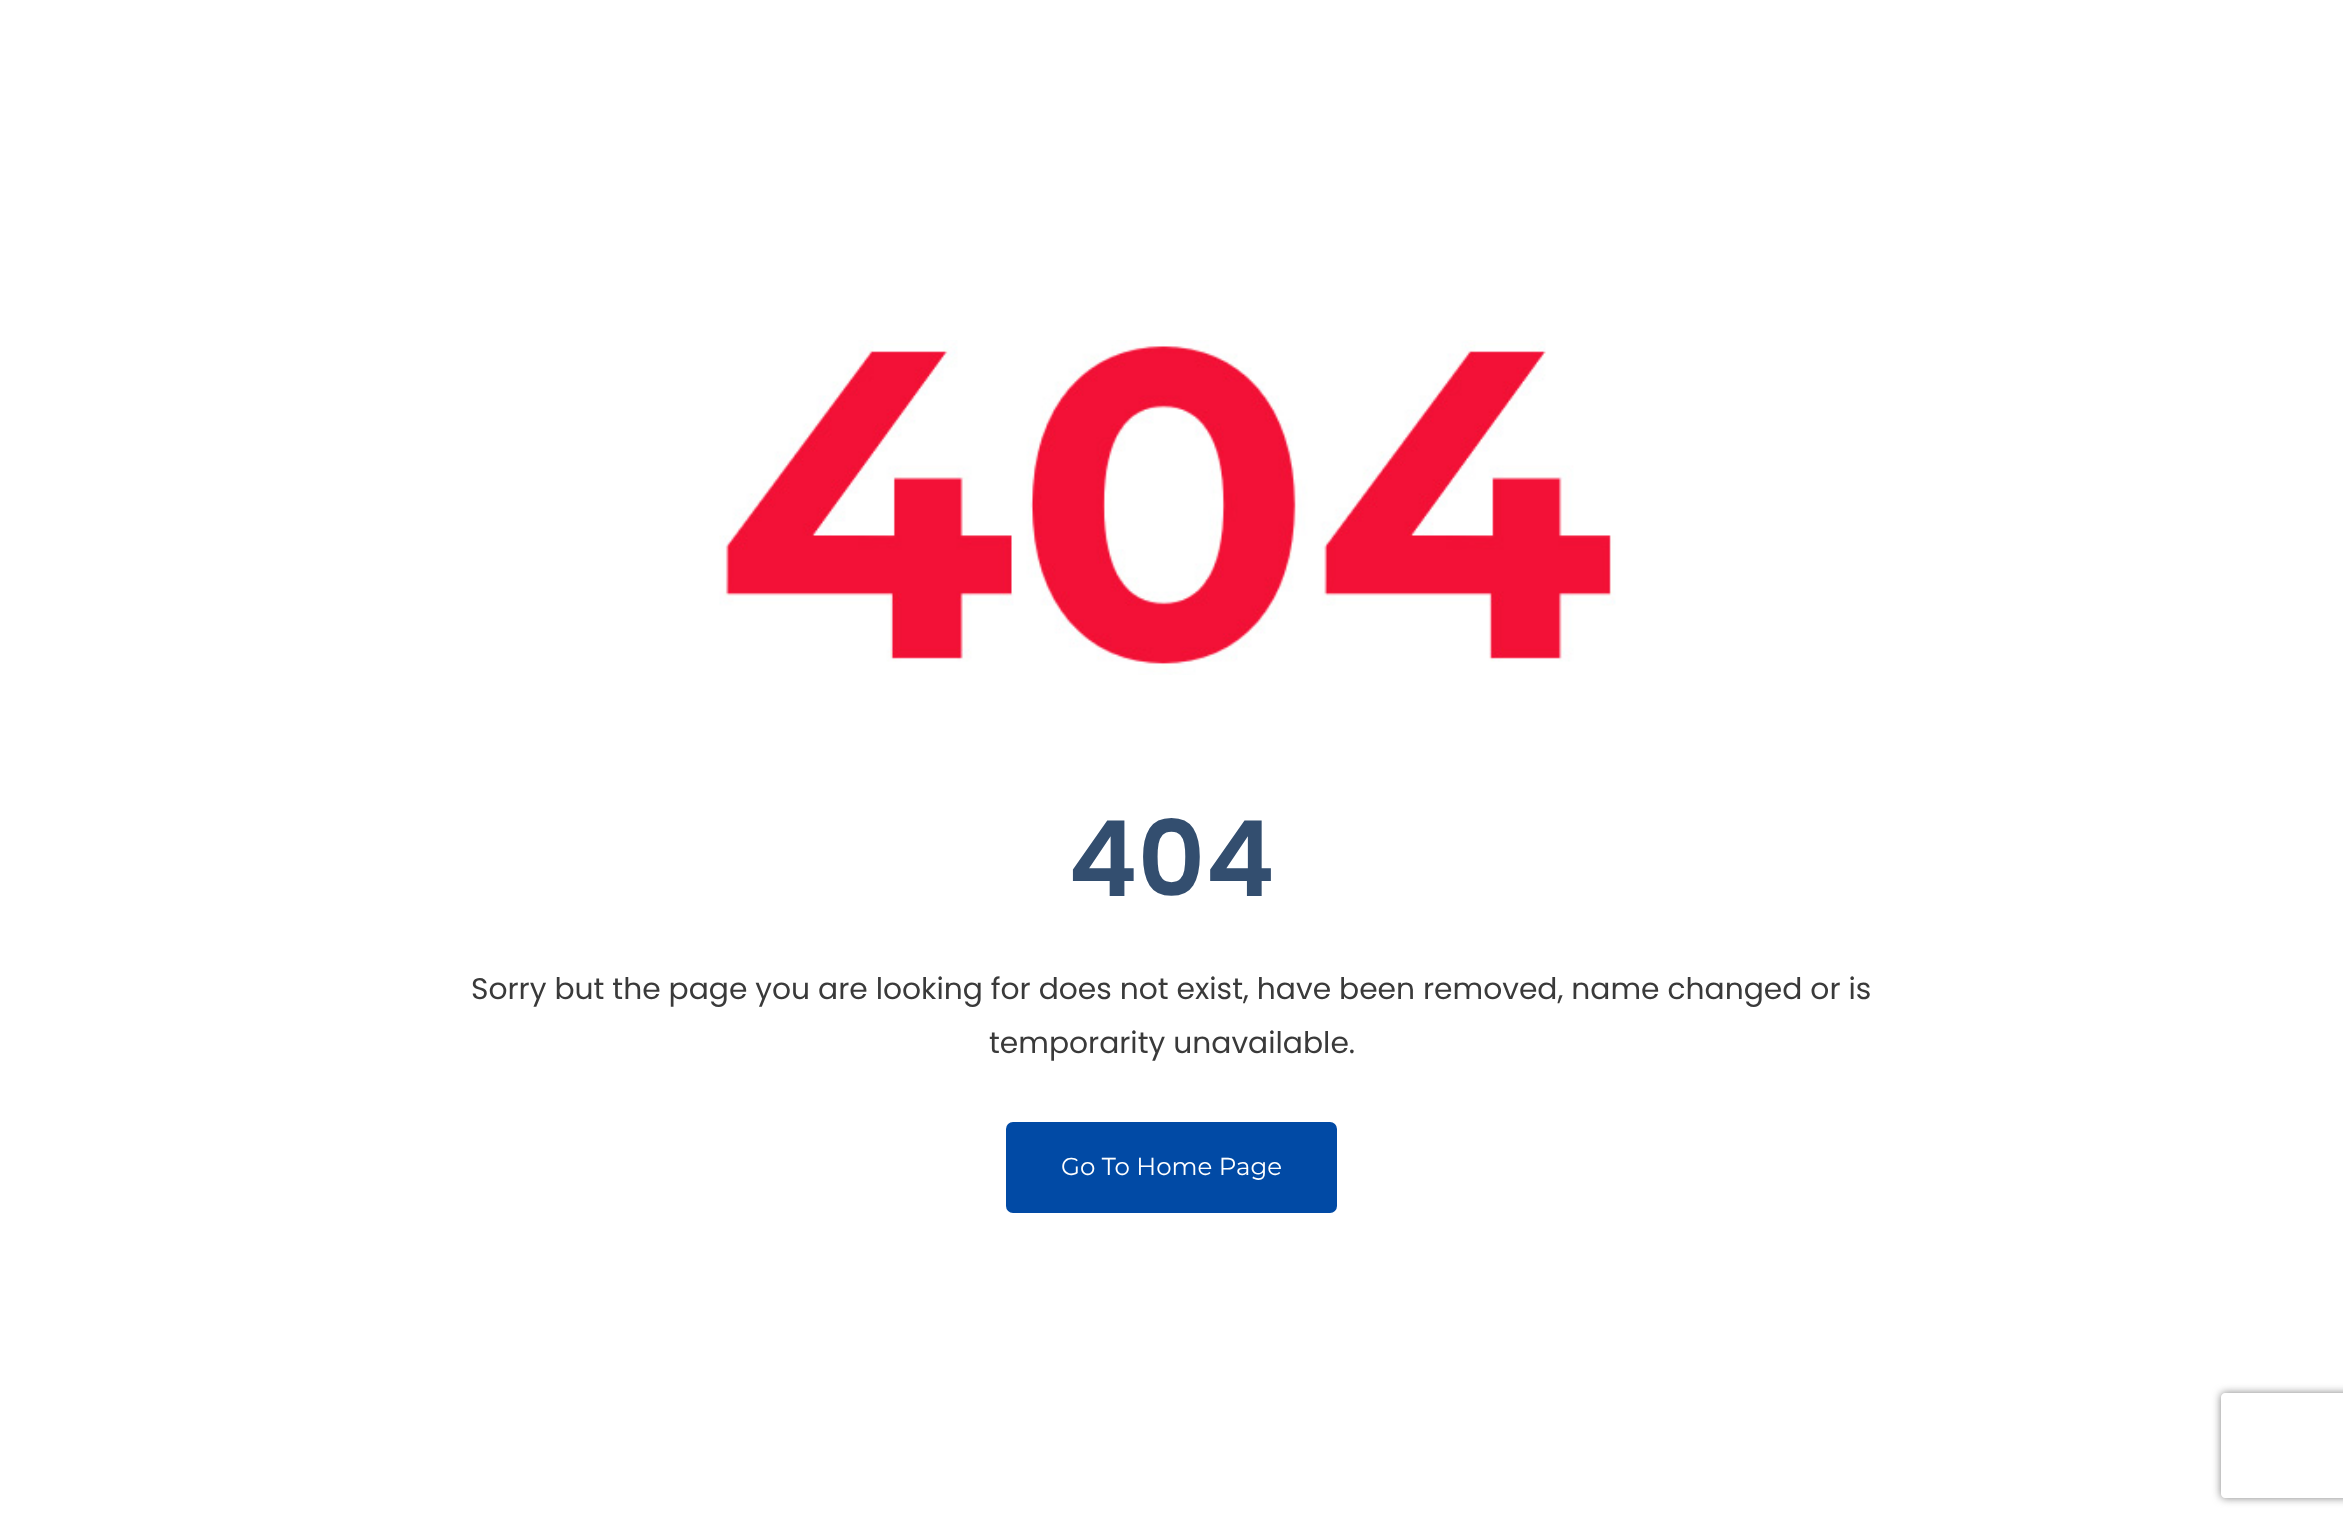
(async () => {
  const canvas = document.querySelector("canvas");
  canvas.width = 2343;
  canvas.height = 1522;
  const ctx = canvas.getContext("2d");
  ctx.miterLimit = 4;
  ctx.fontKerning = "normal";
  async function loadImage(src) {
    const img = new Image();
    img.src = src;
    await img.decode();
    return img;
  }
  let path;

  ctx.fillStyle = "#ffffff";
  ctx.fillRect(0, 0, 2343, 1522);
  ctx.drawImage(await loadImage("img/1.png"), 719, 340, 897, 335);
  ctx.fillStyle = "#014aa5";
  ctx.beginPath();
  ctx.roundRect(1007, 1123, 329, 89, 6);
  ctx.fill();
  ctx.strokeStyle = "#014aa5";
  ctx.lineWidth = 2;
  ctx.stroke();
  ctx.save();
  path = new Path2D("M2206 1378H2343V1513H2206ZM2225 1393H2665C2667 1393 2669 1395 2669 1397V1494C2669 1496 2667 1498 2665 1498H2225C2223 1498 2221 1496 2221 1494V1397C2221 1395 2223 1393 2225 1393Z");
  ctx.clip(path, "evenodd");
  ctx.fillStyle = "#808080";
  ctx.filter = "blur(4.5px)";
  ctx.beginPath();
  ctx.roundRect(2221, 1393, 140, 105, 4);
  ctx.fill();
  ctx.filter = "none";
  ctx.restore();
  ctx.font = "600 105px Poppins";
  ctx.fillStyle = "#334e6f";
  ctx.fillText("404", 1068, 896);
  ctx.font = "29.75px Poppins";
  ctx.fillStyle = "#3a3a3a";
  ctx.fillText("Sorry but the page you are looking for does not exist, have been removed, name changed or is", 471, 999);
  ctx.fillText("temporarity unavailable.", 989, 1053);
  ctx.font = "24.5px Montserrat";
  ctx.fillStyle = "#ffffff";
  ctx.fillText("Go To Home Page", 1061, 1175);
})();
